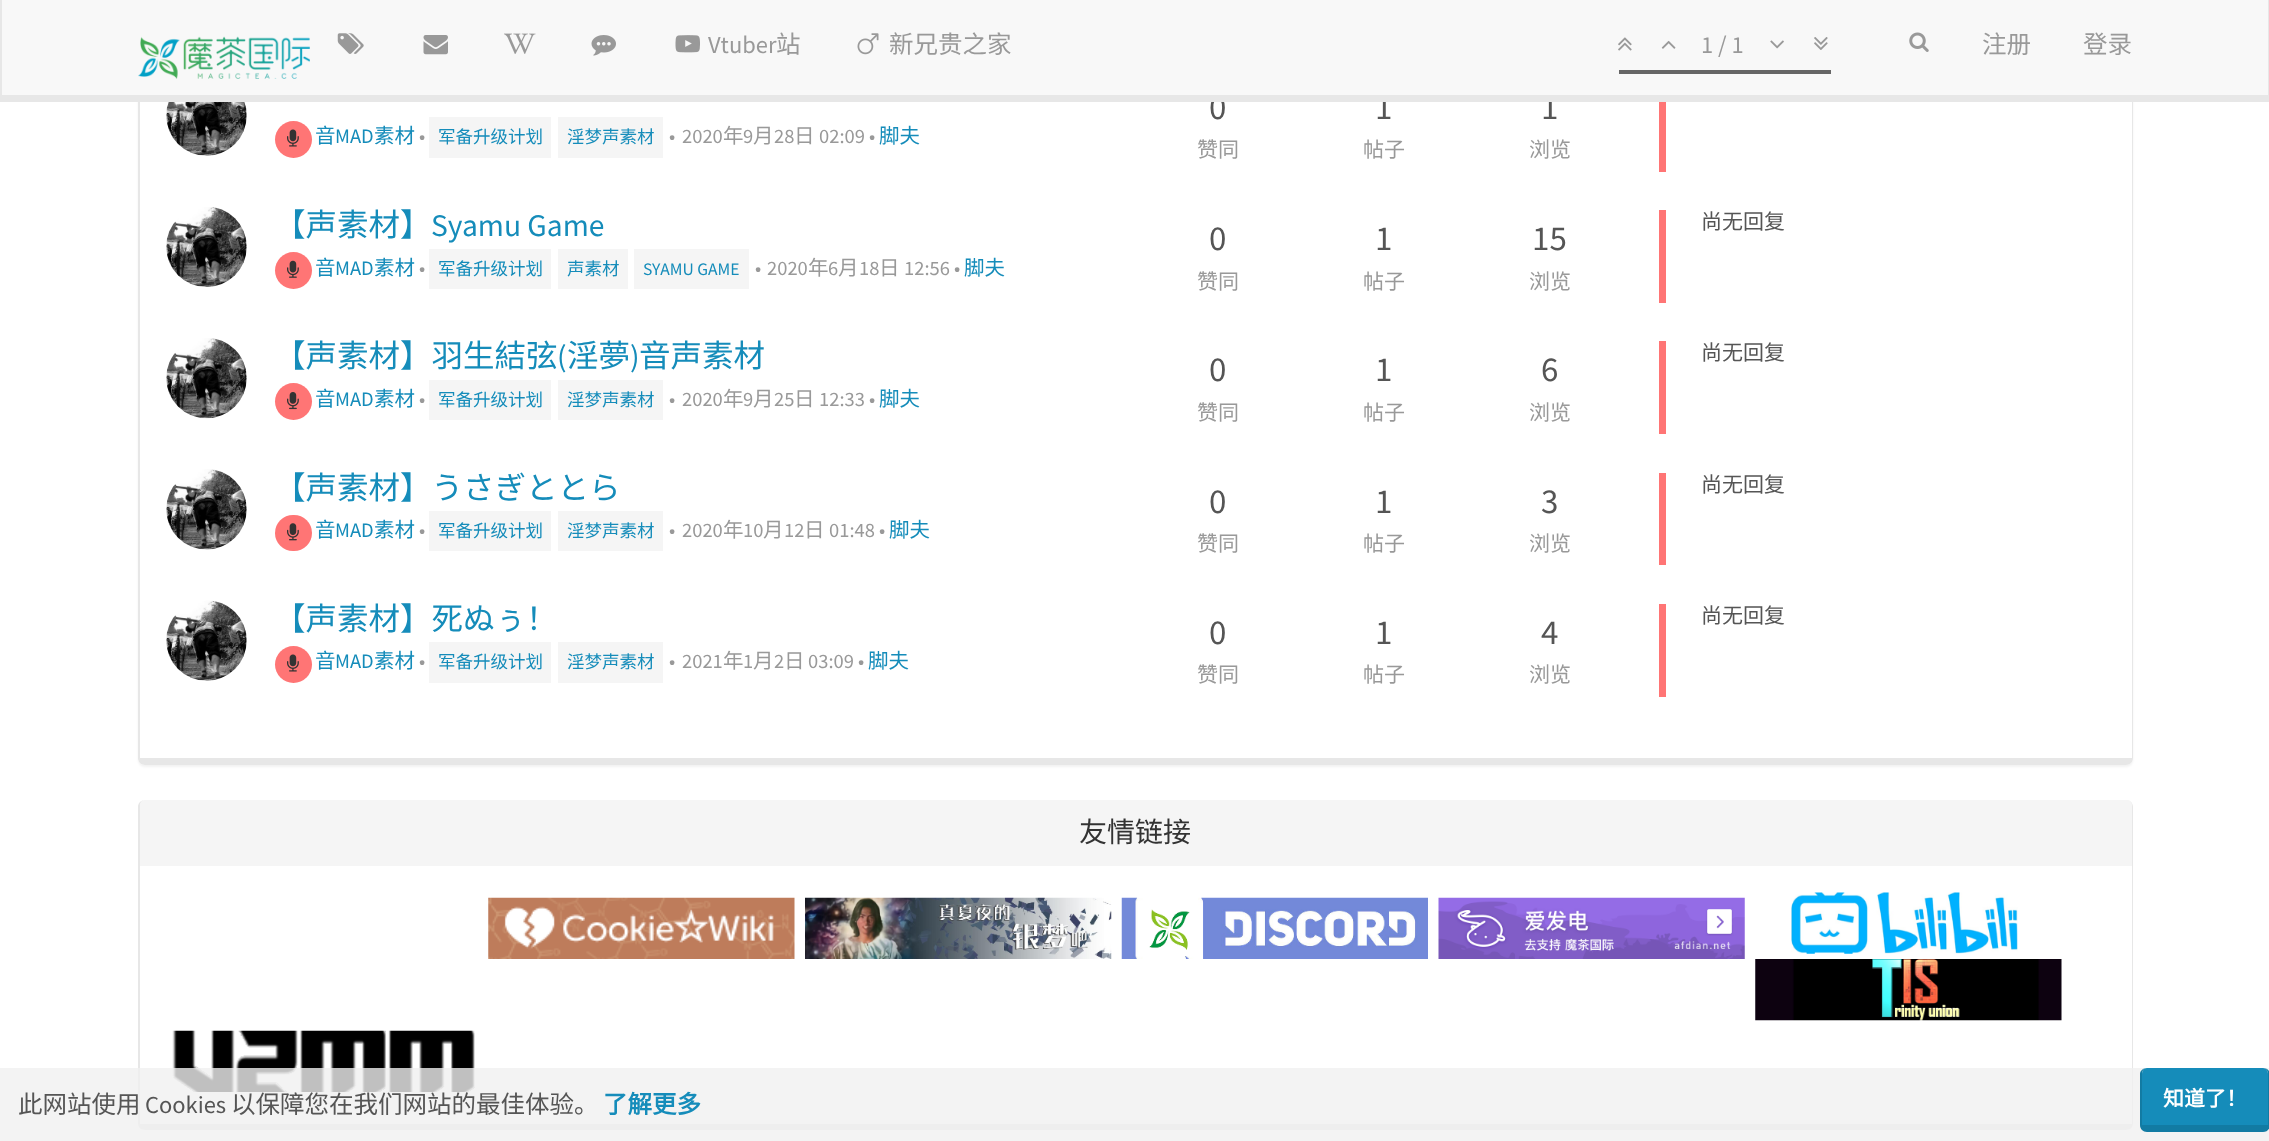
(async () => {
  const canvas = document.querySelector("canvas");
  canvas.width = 2269;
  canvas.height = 1141;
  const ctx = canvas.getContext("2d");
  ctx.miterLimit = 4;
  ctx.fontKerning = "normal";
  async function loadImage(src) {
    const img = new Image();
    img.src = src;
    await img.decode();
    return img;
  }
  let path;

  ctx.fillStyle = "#ffffff";
  ctx.fillRect(0, 0, 2269, 1141);
  ctx.save();
  path = new Path2D("M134 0H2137V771H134ZM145-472H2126C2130-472 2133-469 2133-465V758C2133 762 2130 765 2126 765H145C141 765 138 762 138 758V-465C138-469 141-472 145-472Z");
  ctx.clip(path, "evenodd");
  ctx.fillStyle = "rgba(0, 0, 0, 0.05)";
  ctx.filter = "blur(1px)";
  ctx.beginPath();
  ctx.roundRect(138, -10, 1995, 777, 7);
  ctx.fill();
  ctx.filter = "none";
  ctx.restore();
  ctx.fillStyle = "#e7e7e7";
  path = new Path2D("M145-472H2126C2130-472 2133-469 2133-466V758C2133 762 2130 765 2126 765H145C141 765 138 762 138 758V-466C138-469 141-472 145-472ZM145-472H2126C2129-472 2132-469 2132-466V758H140V-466C140-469 142-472 145-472Z");
  ctx.fill(path, "evenodd");
  ctx.fillStyle = "#f8f8f8";
  ctx.fillRect(2, 0, 2266, 95);
  ctx.fillStyle = "#e7e7e7";
  ctx.fillRect(2268, 0, 1, 102);
  ctx.drawImage(await loadImage("img/1.png"), 138, 36, 172, 43);
  ctx.drawImage(await loadImage("img/2.png"), 337, 33, 27, 21);
  ctx.drawImage(await loadImage("img/3.png"), 423, 35, 25, 20);
  ctx.drawImage(await loadImage("img/4.png"), 504, 33, 32, 21);
  ctx.drawImage(await loadImage("img/5.png"), 591, 35, 25, 21);
  ctx.drawImage(await loadImage("img/6.png"), 675, 35, 25, 18);
  ctx.drawImage(await loadImage("img/7.png"), 857, 33, 22, 22);
  ctx.drawImage(await loadImage("img/8.png"), 1618, 37, 14, 14);
  ctx.drawImage(await loadImage("img/9.png"), 1661, 40, 15, 9);
  ctx.drawImage(await loadImage("img/10.png"), 1770, 40, 14, 9);
  ctx.drawImage(await loadImage("img/11.png"), 1814, 37, 14, 13);
  ctx.fillStyle = "#666666";
  ctx.fillRect(1619, 70, 212, 4);
  ctx.drawImage(await loadImage("img/12.png"), 1909, 32, 20, 20);
  ctx.drawImage(await loadImage("img/13.png"), 166, 102, 81, 54);
  ctx.fillStyle = "#ff7575";
  ctx.beginPath();
  ctx.arc(293.5, 139.5, 18.5, 0, Math.PI * 2);
  ctx.fill();
  ctx.drawImage(await loadImage("img/14.png"), 287, 129, 12, 18);
  for (const [x, y, w, h, color] of [
    [429, 117, 122, 41, "#f5f5f5"],
    [558, 117, 105, 41, "#f5f5f5"],
    [1659, 102, 7, 70, "#ff7575"],
  ]) {
    ctx.fillStyle = color;
    ctx.fillRect(x, y, w, h);
  }
  ctx.drawImage(await loadImage("img/15.png"), 166, 207, 81, 80);
  ctx.beginPath();
  ctx.arc(293.5, 270.5, 18.5, 0, Math.PI * 2);
  ctx.fill();
  ctx.drawImage(await loadImage("img/16.png"), 287, 260, 12, 18);
  for (const [x, y, w, h, color] of [
    [429, 249, 122, 40, "#f5f5f5"],
    [558, 249, 70, 40, "#f5f5f5"],
    [634, 249, 115, 40, "#f5f5f5"],
    [1659, 210, 7, 93, "#ff7575"],
  ]) {
    ctx.fillStyle = color;
    ctx.fillRect(x, y, w, h);
  }
  ctx.drawImage(await loadImage("img/17.png"), 166, 338, 81, 81);
  ctx.beginPath();
  ctx.arc(293.5, 401.5, 18.5, 0, Math.PI * 2);
  ctx.fill();
  ctx.drawImage(await loadImage("img/18.png"), 287, 392, 12, 18);
  for (const [x, y, w, h, color] of [
    [429, 380, 122, 40, "#f5f5f5"],
    [558, 380, 105, 40, "#f5f5f5"],
    [1659, 341, 7, 93, "#ff7575"],
  ]) {
    ctx.fillStyle = color;
    ctx.fillRect(x, y, w, h);
  }
  ctx.drawImage(await loadImage("img/19.png"), 166, 469, 81, 81);
  ctx.beginPath();
  ctx.roundRect(275, 515, 37, 36, 18);
  ctx.fill();
  ctx.drawImage(await loadImage("img/20.png"), 287, 523, 12, 18);
  for (const [x, y, w, h, color] of [
    [429, 511, 122, 40, "#f5f5f5"],
    [558, 511, 105, 40, "#f5f5f5"],
    [1659, 473, 7, 92, "#ff7575"],
  ]) {
    ctx.fillStyle = color;
    ctx.fillRect(x, y, w, h);
  }
  ctx.drawImage(await loadImage("img/21.png"), 166, 600, 81, 81);
  ctx.beginPath();
  ctx.arc(293.5, 664.5, 18.5, 0, Math.PI * 2);
  ctx.fill();
  ctx.drawImage(await loadImage("img/14.png"), 287, 654, 12, 18);
  for (const [x, y, w, h, color] of [
    [429, 642, 122, 41, "#f5f5f5"],
    [558, 642, 105, 41, "#f5f5f5"],
    [1659, 604, 7, 93, "#ff7575"],
  ]) {
    ctx.fillStyle = color;
    ctx.fillRect(x, y, w, h);
  }
  ctx.fillStyle = "#e7e7e7";
  path = new Path2D("M145 800H2126C2130 800 2133 803 2133 807V1124C2133 1127 2130 1130 2126 1130H145C141 1130 138 1127 138 1124V807C138 803 141 800 145 800ZM145 800H2126C2129 800 2132 803 2132 807V1124H140V807C140 803 142 800 145 800Z");
  ctx.fill(path, "evenodd");
  ctx.fillStyle = "#f5f5f5";
  ctx.beginPath();
  ctx.roundRect(140, 800, 1992, 66, [5, 5, 0, 0]);
  ctx.fill();
  ctx.drawImage(await loadImage("img/22.png"), 488, 897, 307, 62);
  ctx.drawImage(await loadImage("img/23.png"), 805, 897, 307, 62);
  ctx.drawImage(await loadImage("img/24.png"), 1121, 897, 307, 62);
  ctx.drawImage(await loadImage("img/25.png"), 1438, 897, 307, 62);
  ctx.drawImage(await loadImage("img/26.png"), 1791, 892, 227, 62);
  ctx.drawImage(await loadImage("img/27.png"), 1755, 959, 307, 62);
  ctx.drawImage(await loadImage("img/28.png"), 172, 1030, 303, 62);
  ctx.fillStyle = "rgba(240, 240, 240, 0.8)";
  ctx.fillRect(0, 1068, 2269, 73);
  ctx.fillStyle = "#158cba";
  path = new Path2D("M2147 1068H2263C2266 1068 2268 1071 2268 1074V1125H2142V1074C2142 1071 2144 1068 2147 1068Z");
  ctx.fill(path);
  ctx.fillStyle = "#127ba3";
  path = new Path2D("M2147 1068H2263C2267 1068 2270 1071 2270 1074V1125C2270 1129 2267 1132 2263 1132H2147C2143 1132 2140 1129 2140 1125V1074C2140 1071 2143 1068 2147 1068ZM2147 1068H2263C2266 1068 2268 1071 2268 1074V1125H2142V1074C2142 1071 2144 1068 2147 1068Z");
  ctx.fill(path, "evenodd");
  ctx.font = "24.5px Source Sans Pro";
  ctx.fillStyle = "#999999";
  ctx.fillText("Vtuber", 708, 53);
  ctx.font = "24.5px Noto Sans CJK SC";
  ctx.fillText("站", 776, 53);
  ctx.fillText("新兄贵之家", 889, 53);
  ctx.font = "24.5px Source Sans Pro";
  ctx.fillText("1 / 1", 1701, 53);
  ctx.font = "24.5px Noto Sans CJK SC";
  ctx.fillText("注册", 1982, 53);
  ctx.fillText("登录", 2083, 53);
  ctx.font = "20.5px Noto Sans CJK SC";
  ctx.fillStyle = "#158cba";
  ctx.fillText("音", 315, 143);
  ctx.font = "20.5px Source Sans Pro";
  ctx.fillText("MAD", 335, 143);
  ctx.font = "20.5px Noto Sans CJK SC";
  ctx.fillText("素材", 374, 143);
  ctx.font = "20.5px Source Sans Pro";
  ctx.fillStyle = "#999999";
  ctx.fillText("•", 419, 143);
  ctx.font = "17.5px Noto Sans CJK SC";
  ctx.fillStyle = "#158cba";
  ctx.fillText("军备升级计划", 438, 143);
  ctx.fillText("淫梦声素材", 567, 143);
  ctx.font = "20.5px Source Sans Pro";
  ctx.fillStyle = "#999999";
  ctx.fillText("•", 669, 143);
  ctx.fillText("2020", 682, 143);
  ctx.font = "20.5px Noto Sans CJK SC";
  ctx.fillText("年", 723, 143);
  ctx.font = "20.5px Source Sans Pro";
  ctx.fillText("9", 743, 143);
  ctx.font = "20.5px Noto Sans CJK SC";
  ctx.fillText("月", 753, 143);
  ctx.font = "20.5px Source Sans Pro";
  ctx.fillText("28", 774, 143);
  ctx.font = "20.5px Noto Sans CJK SC";
  ctx.fillText("日", 794, 143);
  ctx.font = "20.5px Source Sans Pro";
  ctx.fillText("02:09 •", 819, 143);
  ctx.font = "20.5px Noto Sans CJK SC";
  ctx.fillStyle = "#158cba";
  ctx.fillText("脚夫", 879, 143);
  ctx.font = "35px Source Sans Pro";
  ctx.fillStyle = "#555555";
  ctx.fillText("0", 1209, 119);
  ctx.font = "21px Noto Sans CJK SC";
  ctx.fillStyle = "#999999";
  ctx.fillText("赞同", 1197, 157);
  ctx.font = "35px Source Sans Pro";
  ctx.fillStyle = "#555555";
  ctx.fillText("1", 1375, 119);
  ctx.font = "21px Noto Sans CJK SC";
  ctx.fillStyle = "#999999";
  ctx.fillText("帖子", 1363, 157);
  ctx.font = "35px Source Sans Pro";
  ctx.fillStyle = "#555555";
  ctx.fillText("1", 1541, 119);
  ctx.fillStyle = "#e7e7e7";
  ctx.fillRect(0, 95, 2269, 7);
  ctx.fillRect(0, 0, 2, 102);
  ctx.font = "21px Noto Sans CJK SC";
  ctx.fillStyle = "#999999";
  ctx.fillText("浏览", 1529, 157);
  ctx.font = "31.5px Noto Sans CJK SC";
  ctx.fillStyle = "#158cba";
  ctx.fillText("【声素材】", 274, 236);
  ctx.font = "31.5px Source Sans Pro";
  ctx.fillText("Syamu Game", 431, 236);
  ctx.font = "20.5px Noto Sans CJK SC";
  ctx.fillText("音", 315, 275);
  ctx.font = "20.5px Source Sans Pro";
  ctx.fillText("MAD", 335, 275);
  ctx.font = "20.5px Noto Sans CJK SC";
  ctx.fillText("素材", 374, 275);
  ctx.font = "20.5px Source Sans Pro";
  ctx.fillStyle = "#999999";
  ctx.fillText("•", 419, 275);
  ctx.font = "17.5px Noto Sans CJK SC";
  ctx.fillStyle = "#158cba";
  ctx.fillText("军备升级计划", 438, 275);
  ctx.fillText("声素材", 567, 275);
  ctx.font = "17.5px Source Sans Pro";
  ctx.fillText("SYAMU GAME", 643, 275);
  ctx.font = "20.5px Source Sans Pro";
  ctx.fillStyle = "#999999";
  ctx.fillText("•", 755, 275);
  ctx.fillText("2020", 767, 275);
  ctx.font = "20.5px Noto Sans CJK SC";
  ctx.fillText("年", 808, 275);
  ctx.font = "20.5px Source Sans Pro";
  ctx.fillText("6", 828, 275);
  ctx.font = "20.5px Noto Sans CJK SC";
  ctx.fillText("月", 838, 275);
  ctx.font = "20.5px Source Sans Pro";
  ctx.fillText("18", 859, 275);
  ctx.font = "20.5px Noto Sans CJK SC";
  ctx.fillText("日", 879, 275);
  ctx.font = "20.5px Source Sans Pro";
  ctx.fillText("12:56 •", 904, 275);
  ctx.font = "20.5px Noto Sans CJK SC";
  ctx.fillStyle = "#158cba";
  ctx.fillText("脚夫", 964, 275);
  ctx.font = "21px Noto Sans CJK SC";
  ctx.fillStyle = "#555555";
  ctx.fillText("尚无回复", 1701, 229);
  ctx.font = "35px Source Sans Pro";
  ctx.fillText("0", 1209, 250);
  ctx.font = "21px Noto Sans CJK SC";
  ctx.fillStyle = "#999999";
  ctx.fillText("赞同", 1197, 289);
  ctx.font = "35px Source Sans Pro";
  ctx.fillStyle = "#555555";
  ctx.fillText("1", 1375, 250);
  ctx.font = "21px Noto Sans CJK SC";
  ctx.fillStyle = "#999999";
  ctx.fillText("帖子", 1363, 289);
  ctx.font = "35px Source Sans Pro";
  ctx.fillStyle = "#555555";
  ctx.fillText("15", 1532, 250);
  ctx.font = "21px Noto Sans CJK SC";
  ctx.fillStyle = "#999999";
  ctx.fillText("浏览", 1529, 289);
  ctx.font = "31.5px Noto Sans CJK SC";
  ctx.fillStyle = "#158cba";
  ctx.fillText("【声素材】羽生結弦", 274, 367);
  ctx.font = "31.5px Source Sans Pro";
  ctx.fillText("(", 557, 367);
  ctx.font = "31.5px Noto Sans CJK SC";
  ctx.fillText("淫夢", 567, 367);
  ctx.font = "31.5px Source Sans Pro";
  ctx.fillText(")", 630, 367);
  ctx.font = "31.5px Noto Sans CJK SC";
  ctx.fillText("音声素材", 639, 367);
  ctx.font = "20.5px Noto Sans CJK SC";
  ctx.fillText("音", 315, 406);
  ctx.font = "20.5px Source Sans Pro";
  ctx.fillText("MAD", 335, 406);
  ctx.font = "20.5px Noto Sans CJK SC";
  ctx.fillText("素材", 374, 406);
  ctx.font = "20.5px Source Sans Pro";
  ctx.fillStyle = "#999999";
  ctx.fillText("•", 419, 406);
  ctx.font = "17.5px Noto Sans CJK SC";
  ctx.fillStyle = "#158cba";
  ctx.fillText("军备升级计划", 438, 406);
  ctx.fillText("淫梦声素材", 567, 406);
  ctx.font = "20.5px Source Sans Pro";
  ctx.fillStyle = "#999999";
  ctx.fillText("•", 669, 406);
  ctx.fillText("2020", 682, 406);
  ctx.font = "20.5px Noto Sans CJK SC";
  ctx.fillText("年", 723, 406);
  ctx.font = "20.5px Source Sans Pro";
  ctx.fillText("9", 743, 406);
  ctx.font = "20.5px Noto Sans CJK SC";
  ctx.fillText("月", 753, 406);
  ctx.font = "20.5px Source Sans Pro";
  ctx.fillText("25", 774, 406);
  ctx.font = "20.5px Noto Sans CJK SC";
  ctx.fillText("日", 794, 406);
  ctx.font = "20.5px Source Sans Pro";
  ctx.fillText("12:33 •", 819, 406);
  ctx.font = "20.5px Noto Sans CJK SC";
  ctx.fillStyle = "#158cba";
  ctx.fillText("脚夫", 879, 406);
  ctx.font = "21px Noto Sans CJK SC";
  ctx.fillStyle = "#555555";
  ctx.fillText("尚无回复", 1701, 360);
  ctx.font = "35px Source Sans Pro";
  ctx.fillText("0", 1209, 381);
  ctx.font = "21px Noto Sans CJK SC";
  ctx.fillStyle = "#999999";
  ctx.fillText("赞同", 1197, 420);
  ctx.font = "35px Source Sans Pro";
  ctx.fillStyle = "#555555";
  ctx.fillText("1", 1375, 381);
  ctx.font = "21px Noto Sans CJK SC";
  ctx.fillStyle = "#999999";
  ctx.fillText("帖子", 1363, 420);
  ctx.font = "35px Source Sans Pro";
  ctx.fillStyle = "#555555";
  ctx.fillText("6", 1541, 381);
  ctx.font = "21px Noto Sans CJK SC";
  ctx.fillStyle = "#999999";
  ctx.fillText("浏览", 1529, 420);
  ctx.font = "31.5px Noto Sans CJK SC";
  ctx.fillStyle = "#158cba";
  ctx.fillText("【声素材】うさぎととら", 274, 499);
  ctx.font = "20.5px Noto Sans CJK SC";
  ctx.fillText("音", 315, 537);
  ctx.font = "20.5px Source Sans Pro";
  ctx.fillText("MAD", 335, 537);
  ctx.font = "20.5px Noto Sans CJK SC";
  ctx.fillText("素材", 374, 537);
  ctx.font = "20.5px Source Sans Pro";
  ctx.fillStyle = "#999999";
  ctx.fillText("•", 419, 537);
  ctx.font = "17.5px Noto Sans CJK SC";
  ctx.fillStyle = "#158cba";
  ctx.fillText("军备升级计划", 438, 537);
  ctx.fillText("淫梦声素材", 567, 537);
  ctx.font = "20.5px Source Sans Pro";
  ctx.fillStyle = "#999999";
  ctx.fillText("•", 669, 537);
  ctx.fillText("2020", 682, 537);
  ctx.font = "20.5px Noto Sans CJK SC";
  ctx.fillText("年", 723, 537);
  ctx.font = "20.5px Source Sans Pro";
  ctx.fillText("10", 743, 537);
  ctx.font = "20.5px Noto Sans CJK SC";
  ctx.fillText("月", 763, 537);
  ctx.font = "20.5px Source Sans Pro";
  ctx.fillText("12", 784, 537);
  ctx.font = "20.5px Noto Sans CJK SC";
  ctx.fillText("日", 804, 537);
  ctx.font = "20.5px Source Sans Pro";
  ctx.fillText("01:48 •", 829, 537);
  ctx.font = "20.5px Noto Sans CJK SC";
  ctx.fillStyle = "#158cba";
  ctx.fillText("脚夫", 889, 537);
  ctx.font = "21px Noto Sans CJK SC";
  ctx.fillStyle = "#555555";
  ctx.fillText("尚无回复", 1701, 492);
  ctx.font = "35px Source Sans Pro";
  ctx.fillText("0", 1209, 513);
  ctx.font = "21px Noto Sans CJK SC";
  ctx.fillStyle = "#999999";
  ctx.fillText("赞同", 1197, 551);
  ctx.font = "35px Source Sans Pro";
  ctx.fillStyle = "#555555";
  ctx.fillText("1", 1375, 513);
  ctx.font = "21px Noto Sans CJK SC";
  ctx.fillStyle = "#999999";
  ctx.fillText("帖子", 1363, 551);
  ctx.font = "35px Source Sans Pro";
  ctx.fillStyle = "#555555";
  ctx.fillText("3", 1541, 513);
  ctx.font = "21px Noto Sans CJK SC";
  ctx.fillStyle = "#999999";
  ctx.fillText("浏览", 1529, 551);
  ctx.font = "31.5px Noto Sans CJK SC";
  ctx.fillStyle = "#158cba";
  ctx.fillText("【声素材】死ぬぅ！", 274, 630);
  ctx.font = "20.5px Noto Sans CJK SC";
  ctx.fillText("音", 315, 668);
  ctx.font = "20.5px Source Sans Pro";
  ctx.fillText("MAD", 335, 668);
  ctx.font = "20.5px Noto Sans CJK SC";
  ctx.fillText("素材", 374, 668);
  ctx.font = "20.5px Source Sans Pro";
  ctx.fillStyle = "#999999";
  ctx.fillText("•", 419, 668);
  ctx.font = "17.5px Noto Sans CJK SC";
  ctx.fillStyle = "#158cba";
  ctx.fillText("军备升级计划", 438, 668);
  ctx.fillText("淫梦声素材", 567, 668);
  ctx.font = "20.5px Source Sans Pro";
  ctx.fillStyle = "#999999";
  ctx.fillText("•", 669, 668);
  ctx.fillText("2021", 682, 668);
  ctx.font = "20.5px Noto Sans CJK SC";
  ctx.fillText("年", 723, 668);
  ctx.font = "20.5px Source Sans Pro";
  ctx.fillText("1", 743, 668);
  ctx.font = "20.5px Noto Sans CJK SC";
  ctx.fillText("月", 753, 668);
  ctx.font = "20.5px Source Sans Pro";
  ctx.fillText("2", 774, 668);
  ctx.font = "20.5px Noto Sans CJK SC";
  ctx.fillText("日", 784, 668);
  ctx.font = "20.5px Source Sans Pro";
  ctx.fillText("03:09 •", 808, 668);
  ctx.font = "20.5px Noto Sans CJK SC";
  ctx.fillStyle = "#158cba";
  ctx.fillText("脚夫", 868, 668);
  ctx.font = "21px Noto Sans CJK SC";
  ctx.fillStyle = "#555555";
  ctx.fillText("尚无回复", 1701, 623);
  ctx.font = "35px Source Sans Pro";
  ctx.fillText("0", 1209, 644);
  ctx.font = "21px Noto Sans CJK SC";
  ctx.fillStyle = "#999999";
  ctx.fillText("赞同", 1197, 682);
  ctx.font = "35px Source Sans Pro";
  ctx.fillStyle = "#555555";
  ctx.fillText("1", 1375, 644);
  ctx.font = "21px Noto Sans CJK SC";
  ctx.fillStyle = "#999999";
  ctx.fillText("帖子", 1363, 682);
  ctx.font = "35px Source Sans Pro";
  ctx.fillStyle = "#555555";
  ctx.fillText("4", 1541, 644);
  ctx.font = "21px Noto Sans CJK SC";
  ctx.fillStyle = "#999999";
  ctx.fillText("浏览", 1529, 682);
  ctx.font = "28px Noto Sans CJK SC";
  ctx.fillStyle = "#333333";
  ctx.fillText("友情链接", 1079, 842);
  ctx.font = "24.5px Noto Sans CJK SC";
  ctx.fillStyle = "#555555";
  ctx.fillText("此网站使用", 18, 1113);
  ctx.font = "24.5px Source Sans Pro";
  ctx.fillText("Cookies", 145, 1113);
  ctx.font = "24.5px Noto Sans CJK SC";
  ctx.fillText("以保障您在我们网站的最佳体验。", 231, 1113);
  ctx.font = "bold 24.5px Noto Sans CJK SC";
  ctx.fillStyle = "#158cba";
  ctx.fillText("了解更多", 603, 1113);
  ctx.font = "bold 21px Noto Sans CJK SC";
  ctx.fillStyle = "#ffffff";
  ctx.fillText("知道了！", 2163, 1106);
})();
